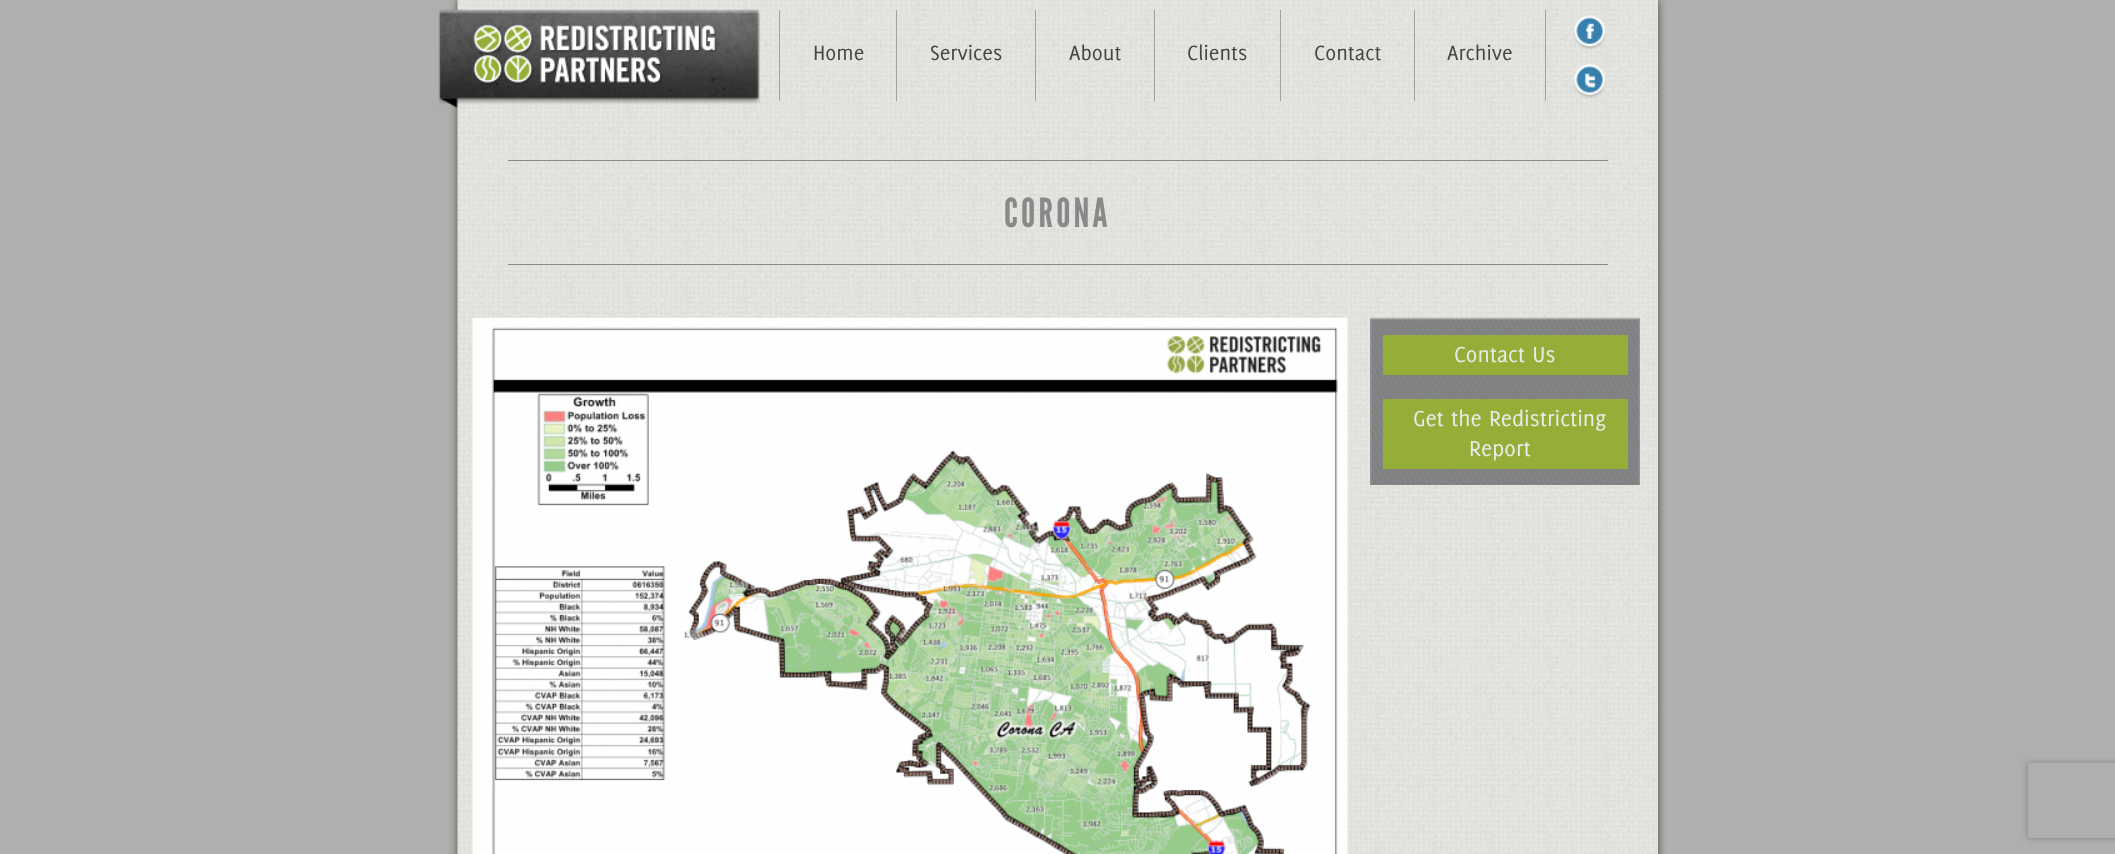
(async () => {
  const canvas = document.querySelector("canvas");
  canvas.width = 2115;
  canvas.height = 854;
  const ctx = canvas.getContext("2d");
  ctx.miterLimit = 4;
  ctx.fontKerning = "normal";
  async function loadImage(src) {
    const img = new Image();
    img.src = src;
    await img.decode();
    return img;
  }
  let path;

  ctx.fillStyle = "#afb0ad";
  ctx.fillRect(0, 0, 2115, 854);
  ctx.fillStyle = "#444444";
  ctx.filter = "blur(4.5px)";
  ctx.beginPath();
  ctx.rect(458, 0, 1200, 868);
  ctx.fill();
  ctx.filter = "none";
  ctx.fillStyle = "#e2e1e1";
  ctx.fillRect(1657, 0, 1, 854);
  ctx.drawImage(await loadImage("img/1.png"), 457, 0, 1201, 854);
  ctx.drawImage(await loadImage("img/2.png"), 438, 9, 322, 99);
  for (const [x, y, w, h, color] of [
    [779, 10, 1, 91, "#a1a1a1"],
    [896, 10, 1, 91, "#a1a1a1"],
    [1035, 10, 1, 91, "#a1a1a1"],
    [1154, 10, 1, 91, "#a1a1a1"],
    [1280, 10, 1, 91, "#a1a1a1"],
    [1414, 10, 1, 91, "#a1a1a1"],
    [1545, 10, 1, 91, "#a1a1a1"],
  ]) {
    ctx.fillStyle = color;
    ctx.fillRect(x, y, w, h);
  }
  ctx.drawImage(await loadImage("img/3.png"), 1573, 15, 33, 35);
  ctx.drawImage(await loadImage("img/4.png"), 1573, 63, 33, 35);
  ctx.fillStyle = "#898989";
  ctx.fillRect(508, 160, 1100, 1);
  ctx.fillRect(508, 264, 1100, 1);
  ctx.drawImage(await loadImage("img/5.png"), 472, 317, 876, 537);
  ctx.drawImage(await loadImage("img/6.png"), 1370, 317, 270, 168);
  ctx.fillStyle = "#95ae37";
  ctx.fillRect(1383, 335, 245, 40);
  ctx.fillRect(1383, 399, 245, 70);
  ctx.save();
  path = new Path2D("M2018 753H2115V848H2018ZM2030.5 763H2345.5C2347 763 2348 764 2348 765.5V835.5C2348 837 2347 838 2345.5 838H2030.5C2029 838 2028 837 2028 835.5V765.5C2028 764 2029 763 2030.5 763Z");
  ctx.clip(path, "evenodd");
  ctx.fillStyle = "#808080";
  ctx.filter = "blur(3px)";
  ctx.beginPath();
  ctx.roundRect(2028, 763, 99, 75, 2.5);
  ctx.fill();
  ctx.filter = "none";
  ctx.restore();
  ctx.font = "500 22.5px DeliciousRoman";
  ctx.fillStyle = "#464646";
  for (const [text, x, y] of [
    ["Home", 813, 60],
    ["Services", 930, 60],
    ["About", 1069, 60],
    ["Clients", 1187, 60],
    ["Contact", 1314, 60],
    ["Archive", 1447, 60],
  ]) {
    ctx.fillText(text, x, y);
  }
  ctx.letterSpacing = "3.25px";
  ctx.font = "40px League Gothic";
  ctx.fillStyle = "#898989";
  ctx.fillText("CORONA", 1004, 227);
  ctx.letterSpacing = "0px";
  ctx.font = "500 23.75px DeliciousRoman";
  ctx.fillStyle = "#ebebeb";
  for (const [text, x, y] of [
    ["Contact Us", 1454, 362],
    ["Get the Redistricting", 1413, 426],
    ["Report", 1469, 456],
  ]) {
    ctx.fillText(text, x, y);
  }
})();
